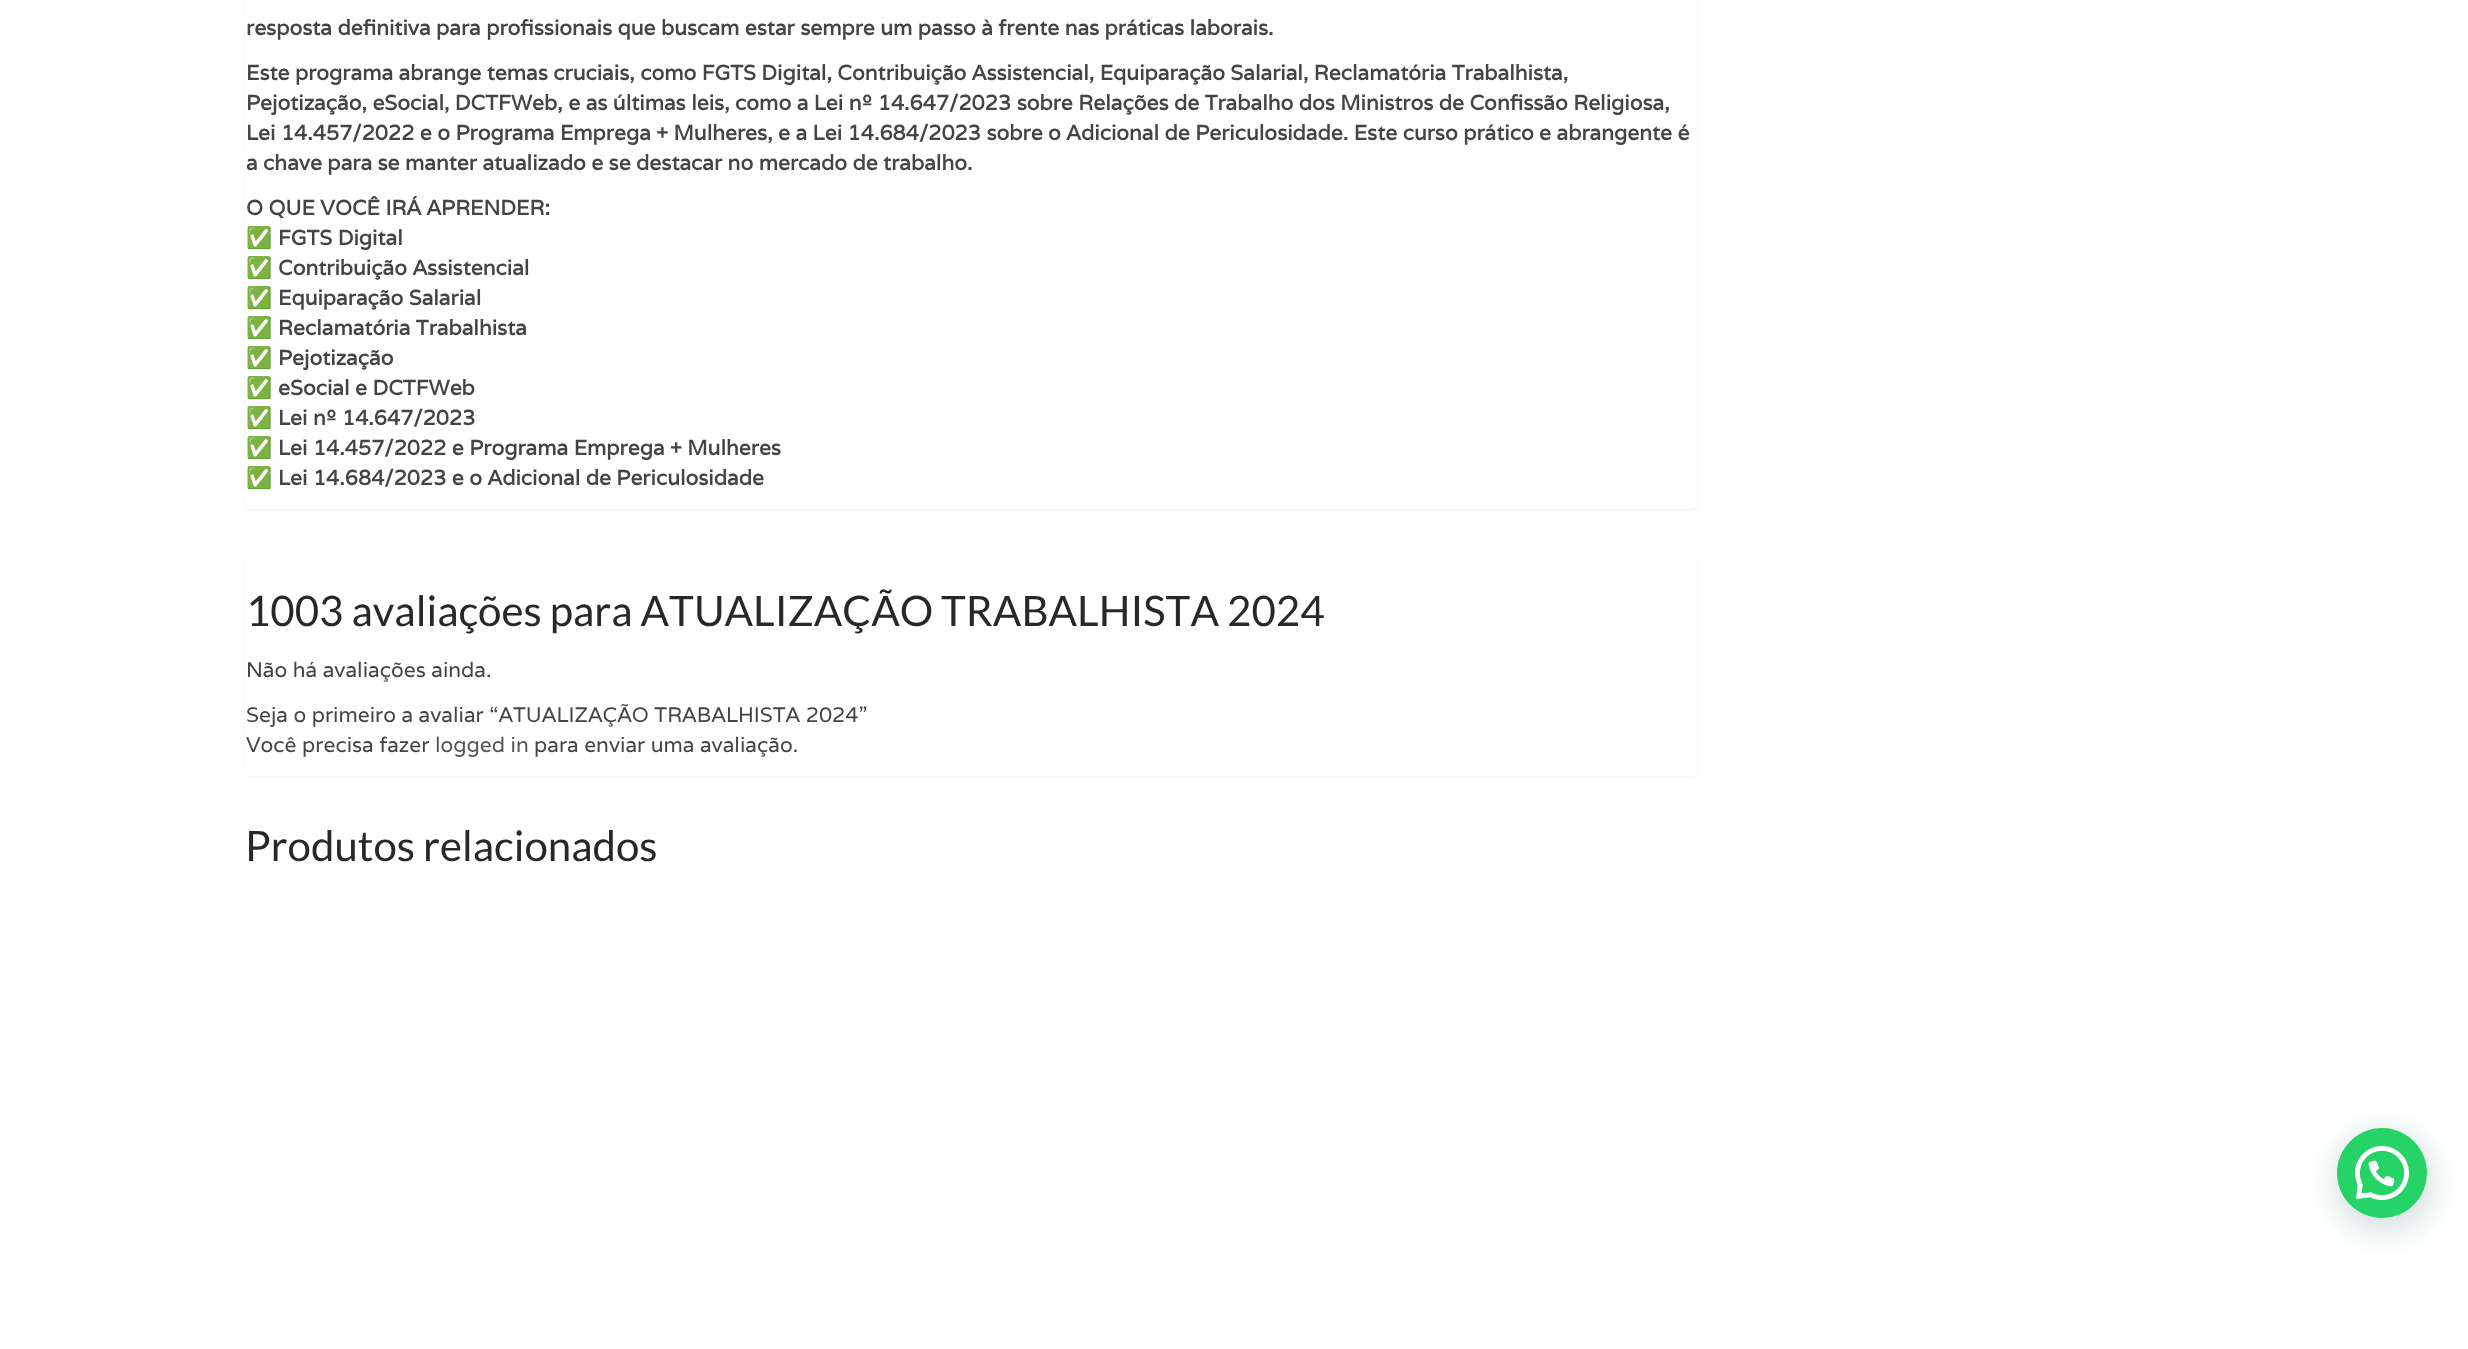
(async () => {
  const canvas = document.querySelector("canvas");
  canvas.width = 2468;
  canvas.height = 1349;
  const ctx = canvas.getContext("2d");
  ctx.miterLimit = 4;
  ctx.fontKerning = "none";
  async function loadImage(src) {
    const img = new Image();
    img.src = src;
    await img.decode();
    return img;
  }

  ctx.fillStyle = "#ffffff";
  ctx.fillRect(0, 0, 2468, 1349);
  ctx.fillStyle = "rgba(0, 0, 0, 0.05)";
  ctx.filter = "blur(1px)";
  ctx.beginPath();
  ctx.roundRect(245, -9, 1452, 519, 6);
  ctx.fill();
  ctx.filter = "none";
  ctx.fillStyle = "#ffffff";
  ctx.beginPath();
  ctx.roundRect(245, -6, 1452, 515, 6);
  ctx.fill();
  ctx.fillStyle = "rgba(0, 0, 0, 0.05)";
  ctx.filter = "blur(1px)";
  ctx.beginPath();
  ctx.roundRect(245, 552, 1452, 225, 6);
  ctx.fill();
  ctx.filter = "none";
  ctx.fillStyle = "#ffffff";
  ctx.beginPath();
  ctx.roundRect(245, 551, 1452, 225, 6);
  ctx.fill();
  ctx.fillStyle = "rgba(7, 94, 84, 0.24)";
  ctx.filter = "blur(18px)";
  ctx.beginPath();
  ctx.roundRect(2339, 1137, 90, 90, 45);
  ctx.fill();
  ctx.filter = "none";
  ctx.fillStyle = "#25d366";
  ctx.beginPath();
  ctx.arc(2382, 1173, 45, 0, Math.PI * 2);
  ctx.fill();
  ctx.drawImage(await loadImage("img/1.png"), 2355, 1146, 54, 54);
  ctx.font = "bold 21px Varela";
  ctx.fillStyle = "#444444";
  for (const [text, x, y] of [
    ["resposta definitiva para profissionais que buscam estar sempre um passo à frente nas práticas laborais.", 246, 35],
    ["Este programa abrange temas cruciais, como FGTS Digital, Contribuição Assistencial, Equiparação Salarial, Reclamatória Trabalhista,", 246, 80],
    ["Pejotização, eSocial, DCTFWeb, e as últimas leis, como a Lei nº 14.647/2023 sobre Relações de Trabalho dos Ministros de Confissão Religiosa,", 246, 110],
    ["Lei 14.457/2022 e o Programa Emprega + Mulheres, e a Lei 14.684/2023 sobre o Adicional de Periculosidade. Este curso prático e abrangente é", 246, 140],
    ["a chave para se manter atualizado e se destacar no mercado de trabalho.", 246, 170],
    ["O QUE VOCÊ IRÁ APRENDER:", 246, 215],
  ]) {
    ctx.fillText(text, x, y);
  }
  ctx.font = "bold 21px Noto Color Emoji";
  ctx.fillText("✅", 246, 245);
  ctx.font = "bold 21px Varela";
  ctx.fillText("FGTS Digital", 278, 245);
  ctx.font = "bold 21px Noto Color Emoji";
  ctx.fillText("✅", 246, 275);
  ctx.font = "bold 21px Varela";
  ctx.fillText("Contribuição Assistencial", 278, 275);
  ctx.font = "bold 21px Noto Color Emoji";
  ctx.fillText("✅", 246, 305);
  ctx.font = "bold 21px Varela";
  ctx.fillText("Equiparação Salarial", 278, 305);
  ctx.font = "bold 21px Noto Color Emoji";
  ctx.fillText("✅", 246, 335);
  ctx.font = "bold 21px Varela";
  ctx.fillText("Reclamatória Trabalhista", 278, 335);
  ctx.font = "bold 21px Noto Color Emoji";
  ctx.fillText("✅", 246, 365);
  ctx.font = "bold 21px Varela";
  ctx.fillText("Pejotização", 278, 365);
  ctx.font = "bold 21px Noto Color Emoji";
  ctx.fillText("✅", 246, 395);
  ctx.font = "bold 21px Varela";
  ctx.fillText("eSocial e DCTFWeb", 278, 395);
  ctx.font = "bold 21px Noto Color Emoji";
  ctx.fillText("✅", 246, 425);
  ctx.font = "bold 21px Varela";
  ctx.fillText("Lei nº 14.647/2023", 278, 425);
  ctx.font = "bold 21px Noto Color Emoji";
  ctx.fillText("✅", 246, 455);
  ctx.font = "bold 21px Varela";
  ctx.fillText("Lei 14.457/2022 e Programa Emprega + Mulheres", 278, 455);
  ctx.font = "bold 21px Noto Color Emoji";
  ctx.fillText("✅", 246, 485);
  ctx.font = "bold 21px Varela";
  ctx.fillText("Lei 14.684/2023 e o Adicional de Periculosidade", 278, 485);
  ctx.font = "42px Lato";
  ctx.fillStyle = "#282828";
  ctx.fillText("1003 avaliações para ATUALIZAÇÃO", 246, 626);
  ctx.fillText("TRABALHISTA 2024", 941, 626);
  ctx.font = "21px Varela";
  ctx.fillStyle = "#444444";
  for (const [text, x, y] of [
    ["Não há avaliações ainda.", 246, 677],
    ["Seja o primeiro a avaliar “ATUALIZAÇÃO TRABALHISTA 2024”", 246, 722],
    ["Você precisa fazer", 246, 752],
  ]) {
    ctx.fillText(text, x, y);
  }
  ctx.fillStyle = "#555555";
  ctx.fillText("logged in", 435, 752);
  ctx.fillStyle = "#444444";
  ctx.fillText("para enviar uma avaliação.", 534, 752);
  ctx.font = "42px Lato";
  ctx.fillStyle = "#282828";
  ctx.fillText("Produtos relacionados", 245, 861);
})();
